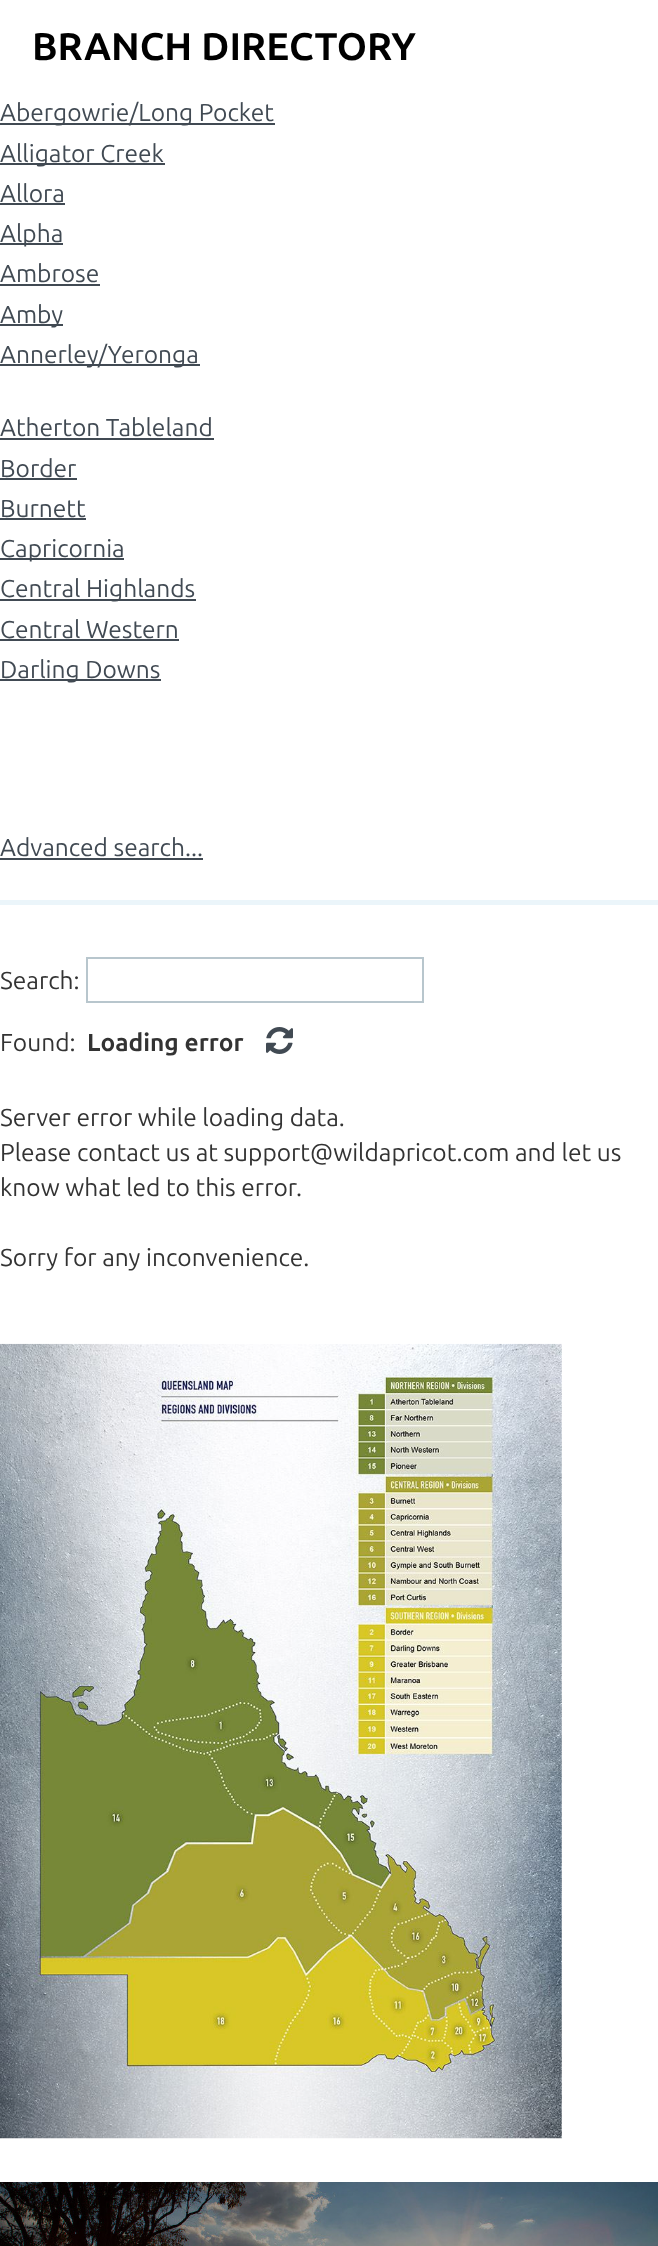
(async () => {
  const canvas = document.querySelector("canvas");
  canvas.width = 658;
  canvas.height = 2246;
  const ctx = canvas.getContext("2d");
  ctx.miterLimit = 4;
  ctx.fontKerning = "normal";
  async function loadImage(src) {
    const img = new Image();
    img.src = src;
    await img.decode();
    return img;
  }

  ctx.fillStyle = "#ffffff";
  ctx.fillRect(0, 0, 658, 2246);
  for (const [x, y, w, h, color] of [
    [0, 123, 275, 2, "#414a53"],
    [0, 163, 165, 2, "#414a53"],
    [0, 203, 65, 2, "#414a53"],
    [0, 243, 63, 2, "#414a53"],
    [0, 284, 100, 2, "#414a53"],
    [0, 324, 63, 2, "#414a53"],
    [0, 364, 200, 2, "#414a53"],
    [0, 438, 214, 2, "#414a53"],
    [0, 478, 77, 2, "#414a53"],
    [0, 518, 86, 2, "#414a53"],
    [0, 558, 124, 2, "#414a53"],
    [0, 599, 196, 2, "#414a53"],
    [0, 639, 179, 2, "#414a53"],
    [0, 679, 161, 2, "#414a53"],
    [0, 858, 203, 2, "#414a53"],
    [0, 900, 658, 5, "#ebf5fa"],
  ]) {
    ctx.fillStyle = color;
    ctx.fillRect(x, y, w, h);
  }
  ctx.strokeStyle = "#b8c6cd";
  ctx.lineWidth = 2;
  ctx.strokeRect(87, 958, 336, 44);
  ctx.drawImage(await loadImage("img/1.png"), 266, 1027, 27, 27);
  ctx.drawImage(await loadImage("img/2.png"), 0, 1343, 562, 796);
  ctx.drawImage(await loadImage("img/3.png"), 0, 2182, 658, 64);
  ctx.font = "bold 38.5px Ubuntu";
  ctx.fillStyle = "#000000";
  ctx.fillText("BRANCH DIRECTORY", 32, 60);
  ctx.font = "24.5px Ubuntu";
  ctx.fillStyle = "#414a53";
  for (const [text, x, y] of [
    ["Abergowrie/Long Pocket", 0, 121],
    ["Alligator Creek", 0, 162],
    ["Allora", 0, 202],
    ["Alpha", 0, 242],
    ["Ambrose", 0, 282],
    ["Amby", 0, 323],
    ["Annerley/Yeronga", 0, 363],
    ["Atherton Tableland", 0, 436],
    ["Border", 0, 477],
    ["Burnett", 0, 517],
    ["Capricornia", 0, 557],
    ["Central Highlands", 0, 597],
    ["Central Western", 0, 638],
    ["Darling Downs", 0, 678],
    ["Advanced search...", 0, 856],
  ]) {
    ctx.fillText(text, x, y);
  }
  ctx.fillStyle = "#333333";
  ctx.fillText("Search:", 0, 989);
  ctx.fillText("Found:", 0, 1051);
  ctx.font = "bold 24.5px Ubuntu";
  ctx.fillText("Loading error", 87, 1051);
  ctx.font = "24.5px Ubuntu";
  for (const [text, x, y] of [
    ["Server error while loading data.", 0, 1126],
    ["Please contact us at support@wildapricot.com and let us", 0, 1161],
    ["know what led to this error.", 0, 1196],
    ["Sorry for any inconvenience.", 0, 1266],
  ]) {
    ctx.fillText(text, x, y);
  }
})();
